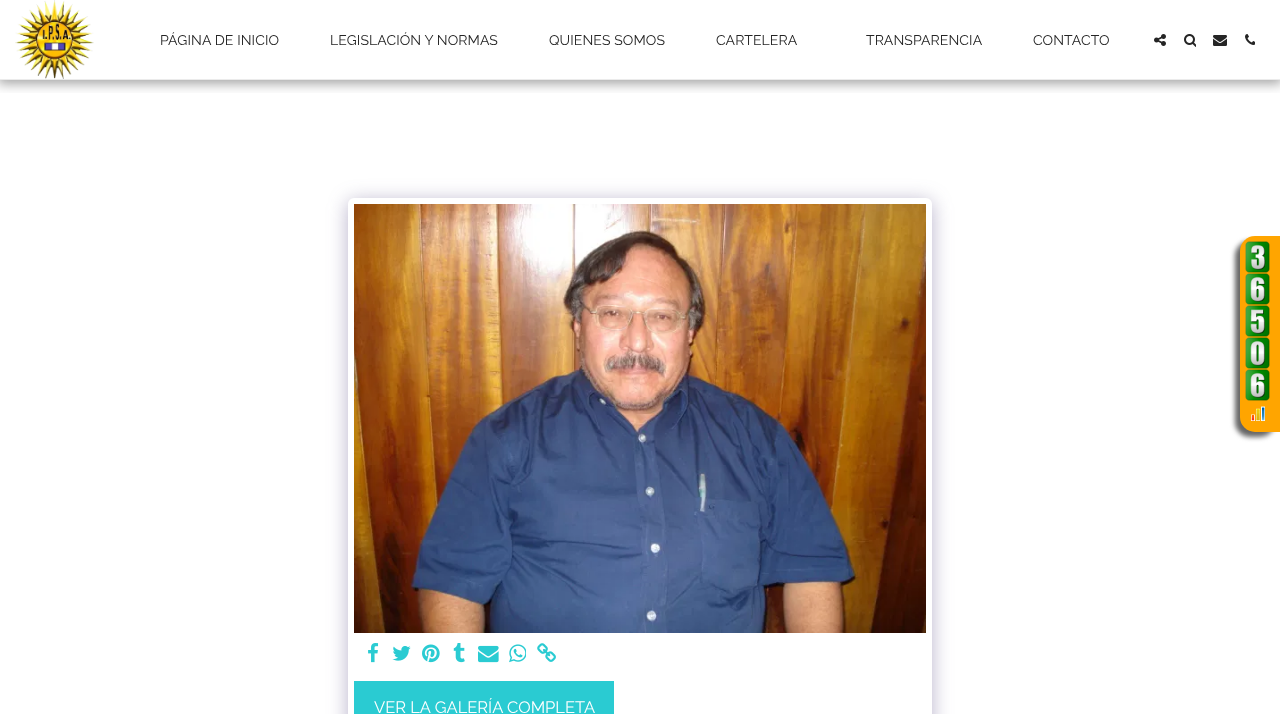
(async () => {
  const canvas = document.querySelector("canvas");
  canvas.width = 1280;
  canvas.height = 714;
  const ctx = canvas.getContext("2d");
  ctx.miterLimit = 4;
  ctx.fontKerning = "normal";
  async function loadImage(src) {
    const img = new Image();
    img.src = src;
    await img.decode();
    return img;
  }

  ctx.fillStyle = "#ffffff";
  ctx.fillRect(0, 0, 1280, 714);
  ctx.save();
  ctx.beginPath();
  ctx.rect(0, 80, 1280, 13);
  ctx.clip();
  ctx.fillStyle = "rgba(0, 0, 0, 0.35)";
  ctx.filter = "blur(6px)";
  ctx.beginPath();
  ctx.rect(-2, 0, 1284, 84);
  ctx.fill();
  ctx.filter = "none";
  ctx.restore();
  ctx.fillStyle = "#ebebeb";
  ctx.fillRect(0, 79, 1280, 1);
  ctx.drawImage(await loadImage("img/1.png"), 15, 0, 79, 79);
  ctx.drawImage(await loadImage("img/2.png"), 1154, 34, 12, 12);
  ctx.drawImage(await loadImage("img/3.png"), 1184, 34, 12, 13);
  ctx.drawImage(await loadImage("img/4.png"), 1213, 35, 14, 11);
  ctx.drawImage(await loadImage("img/5.png"), 1245, 34, 10, 11);
  ctx.fillStyle = "rgba(77, 63, 122, 0.4)";
  ctx.filter = "blur(10px)";
  ctx.beginPath();
  ctx.roundRect(348, 201, 584, 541, 6);
  ctx.fill();
  ctx.filter = "none";
  ctx.fillStyle = "#ffffff";
  ctx.beginPath();
  ctx.roundRect(348, 198, 584, 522, 6);
  ctx.fill();
  ctx.drawImage(await loadImage("img/6.png"), 354, 204, 572, 429);
  ctx.drawImage(await loadImage("img/7.png"), 368, 643, 11, 20);
  ctx.drawImage(await loadImage("img/8.png"), 392, 646, 19, 15);
  ctx.drawImage(await loadImage("img/9.png"), 422, 644, 18, 19);
  ctx.drawImage(await loadImage("img/10.png"), 453, 643, 12, 20);
  ctx.drawImage(await loadImage("img/11.png"), 478, 645, 21, 18);
  ctx.drawImage(await loadImage("img/12.png"), 509, 644, 17, 19);
  ctx.drawImage(await loadImage("img/13.png"), 537, 643, 19, 19);
  ctx.fillStyle = "#2acbd2";
  ctx.fillRect(354, 681, 260, 33);
  ctx.fillStyle = "#656565";
  ctx.filter = "blur(2.5px)";
  ctx.beginPath();
  ctx.roundRect(1235, 241, 40, 196, 15);
  ctx.fill();
  ctx.filter = "none";
  ctx.fillStyle = "#ffa500";
  ctx.beginPath();
  ctx.roundRect(1240, 236, 40, 196, [15, 0, 0, 15]);
  ctx.fill();
  ctx.drawImage(await loadImage("img/14.png"), 1245, 241, 25, 160);
  ctx.drawImage(await loadImage("img/15.png"), 1251, 406, 14, 15);
  ctx.letterSpacing = "0.1px";
  ctx.font = "14px Raleway";
  ctx.fillStyle = "#252525";
  for (const [text, x, y] of [
    ["PÁGINA DE INICIO", 160, 45],
    ["LEGISLACIÓN Y NORMAS", 330, 45],
    ["QUIENES SOMOS", 549, 45],
    ["CARTELERA", 716, 45],
    ["TRANSPARENCIA", 866, 45],
    ["CONTACTO", 1033, 45],
  ]) {
    ctx.fillText(text, x, y);
  }
  ctx.letterSpacing = "0px";
  ctx.font = "16.5px Raleway";
  ctx.fillStyle = "#ffffff";
  ctx.fillText("VER LA GALERÍA COMPLETA", 374, 713);
})();
